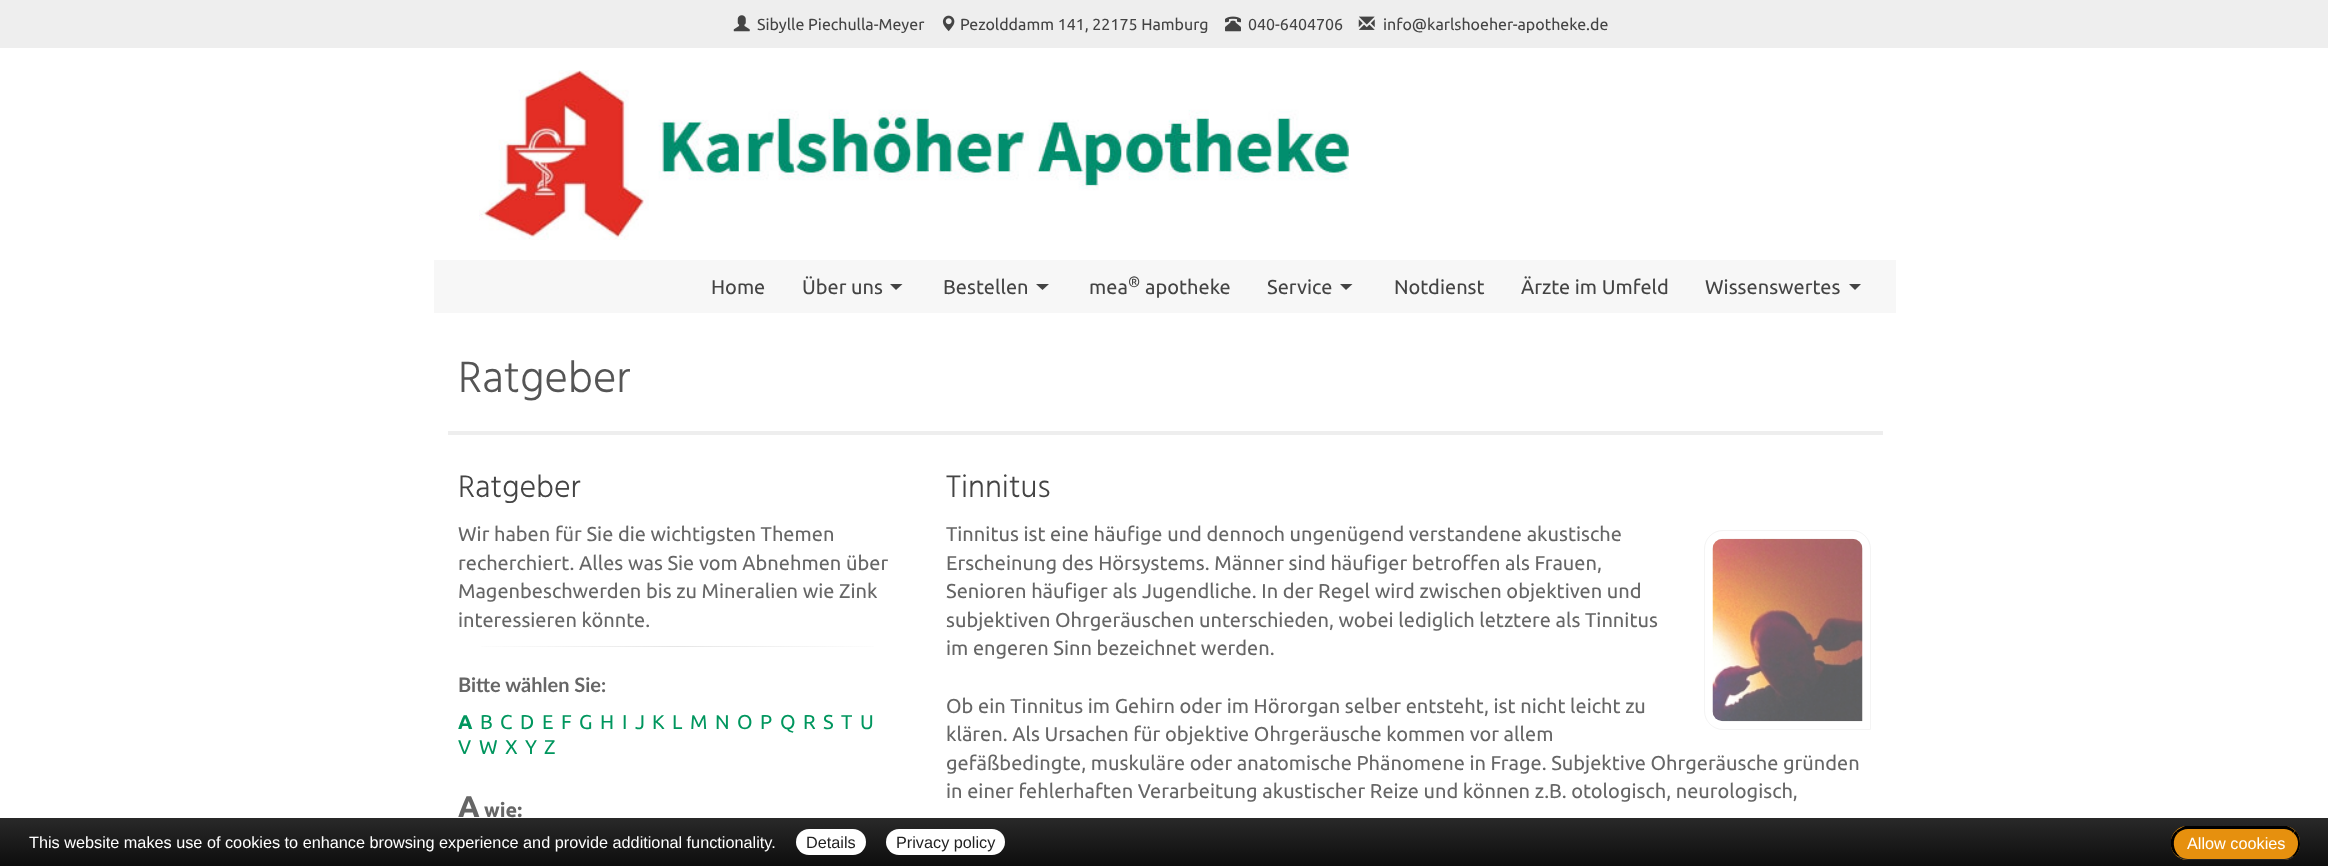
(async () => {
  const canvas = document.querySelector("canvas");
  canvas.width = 2328;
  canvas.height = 866;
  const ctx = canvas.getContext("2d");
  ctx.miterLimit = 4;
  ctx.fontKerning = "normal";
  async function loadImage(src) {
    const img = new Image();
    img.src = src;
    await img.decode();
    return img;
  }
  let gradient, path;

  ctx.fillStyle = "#ffffff";
  ctx.fillRect(0, 0, 2328, 866);
  ctx.fillStyle = "#eeeeee";
  ctx.fillRect(0, 0, 2328, 48);
  ctx.drawImage(await loadImage("img/1.png"), 733, 15, 17, 17);
  ctx.drawImage(await loadImage("img/2.png"), 942, 15, 13, 17);
  ctx.drawImage(await loadImage("img/3.png"), 1225, 16, 16, 16);
  ctx.drawImage(await loadImage("img/4.png"), 1358, 16, 17, 14);
  ctx.drawImage(await loadImage("img/5.png"), 479, 70, 870, 170);
  ctx.fillStyle = "#f7f7f7";
  ctx.fillRect(434, 260, 1462, 53);
  ctx.fillStyle = "#444444";
  path = new Path2D("M890 284H902.5L896 290Z");
  ctx.fill(path);
  path = new Path2D("M1036 284H1049L1042.5 290Z");
  ctx.fill(path);
  path = new Path2D("M1340 284H1352.5L1346 290Z");
  ctx.fill(path);
  path = new Path2D("M1849 284H1861L1855 290Z");
  ctx.fill(path);
  ctx.fillStyle = "#eeeeee";
  ctx.fillRect(448, 431, 1435, 4);
  gradient = ctx.createLinearGradient(459, 647, 896, 647);
  gradient.addColorStop(0, "#ffffff");
  gradient.addColorStop(0.5, "#e6e6e6");
  gradient.addColorStop(1, "#ffffff");
  ctx.fillStyle = gradient;
  ctx.fillRect(481, 646, 393, 1);
  ctx.beginPath();
  ctx.roundRect(1704.5, 530.5, 166, 199, [18.5, 18.5, 0, 18.5]);
  ctx.strokeStyle = "#f4f4f4";
  ctx.stroke();
  ctx.drawImage(await loadImage("img/6.png"), 1712, 538, 151, 184);
  gradient = ctx.createLinearGradient(1164, 817, 1164, 866);
  gradient.addColorStop(0, "rgba(30, 30, 30, 0.95)");
  gradient.addColorStop(1, "rgba(0, 0, 0, 0.95)");
  ctx.fillStyle = gradient;
  ctx.fillRect(0, 818, 2328, 48);
  ctx.fillStyle = "#ffffff";
  ctx.beginPath();
  ctx.roundRect(796, 829, 70, 26, 13);
  ctx.fill();
  ctx.beginPath();
  ctx.roundRect(886, 829, 119, 26, 13);
  ctx.fill();
  ctx.fillStyle = "#e6900e";
  ctx.beginPath();
  ctx.roundRect(2171, 826, 129, 34, 16);
  ctx.fill();
  ctx.fillStyle = "#000000";
  path = new Path2D("M2188 829C2184 829 2180 831 2178 833L2176 831C2179 829 2182 827 2185 826H2287C2290 827 2293 829 2295 831L2293 833C2291 830 2287 829 2284 829Z");
  ctx.fill(path);
  path = new Path2D("M2300 844C2300 839 2299 834.5 2295.5 831L2293.5 833C2300.5 839 2299 850.5 2292 856L2293.5 857C2297.5 854 2300 849.5 2300 844Z");
  ctx.fill(path);
  ctx.fillStyle = "#222222";
  path = new Path2D("M2188 860H2284C2288 860 2291 859 2294 857L2292 856C2290 858 2287 859 2284 859H2188C2185 859 2182 858 2179 856L2178 857C2181 859 2184 860 2188 860Z");
  ctx.fill(path);
  ctx.fillStyle = "#000000";
  path = new Path2D("M2171 839.5C2172 836.5 2173.5 833.5 2176 831L2178 833C2171.5 839 2173 850.5 2179.5 856L2178 856.5C2174.5 854.5 2172 851 2171 846.5Z");
  ctx.fill(path);
  ctx.font = "16px Ubuntu";
  ctx.fillStyle = "#444444";
  for (const [text, x, y] of [
    ["Sibylle Piechulla-Meyer", 757, 30],
    ["Pezolddamm 141, 22175 Hamburg", 960, 30],
    ["040-6404706", 1248, 30],
    ["info@karlshoeher-apotheke.de", 1383, 30],
  ]) {
    ctx.fillText(text, x, y);
  }
  ctx.font = "20px Ubuntu";
  for (const [text, x, y] of [
    ["Home", 711, 294],
    ["Über uns", 802, 294],
    ["Bestellen", 943, 294],
    ["mea", 1089, 294],
  ]) {
    ctx.fillText(text, x, y);
  }
  ctx.font = "15px Ubuntu";
  ctx.fillText("®", 1128, 287);
  ctx.font = "20px Ubuntu";
  for (const [text, x, y] of [
    ["apotheke", 1145, 294],
    ["Service", 1267, 294],
    ["Notdienst", 1394, 294],
    ["Ärzte im Umfeld", 1521, 294],
    ["Wissenswertes", 1705, 294],
  ]) {
    ctx.fillText(text, x, y);
  }
  ctx.font = "300 45px Hind";
  ctx.fillStyle = "#555555";
  ctx.fillText("Ratgeber", 458, 392);
  ctx.font = "300 32px Hind";
  ctx.fillStyle = "#444444";
  ctx.fillText("Ratgeber", 458, 497);
  ctx.font = "20px Ubuntu";
  ctx.fillStyle = "#666666";
  for (const [text, x, y] of [
    ["Wir haben für Sie die wichtigsten Themen", 458, 541],
    ["recherchiert. Alles was Sie vom Abnehmen über", 458, 570],
    ["Magenbeschwerden bis zu Mineralien wie Zink", 458, 598],
    ["interessieren könnte.", 458, 627],
  ]) {
    ctx.fillText(text, x, y);
  }
  ctx.font = "bold 20px Lato";
  ctx.fillText("Bitte wählen Sie:", 458, 692);
  ctx.font = "bold 20px Ubuntu";
  ctx.fillStyle = "#00965e";
  ctx.fillText("A", 458, 729);
  ctx.font = "20px Ubuntu";
  for (const [text, x, y] of [
    ["B", 480, 729],
    ["C", 500, 729],
    ["D", 520, 729],
    ["E", 542, 729],
    ["F", 561, 729],
    ["G", 579, 729],
    ["H", 600, 729],
    ["I", 622, 729],
    ["J", 635, 729],
    ["K", 652, 729],
    ["L", 672, 729],
    ["M", 690, 729],
    ["N", 715, 729],
    ["O", 737, 729],
    ["P", 760, 729],
    ["Q", 780, 729],
    ["R", 803, 729],
    ["S", 823, 729],
    ["T", 841, 729],
    ["U", 860, 729],
    ["V", 458, 754],
    ["W", 479, 754],
    ["X", 505, 754],
    ["Y", 525, 754],
    ["Z", 544, 754],
  ]) {
    ctx.fillText(text, x, y);
  }
  ctx.font = "bold 30px Ubuntu";
  ctx.fillStyle = "#666666";
  ctx.fillText("A", 458, 817);
  ctx.font = "bold 20px Ubuntu";
  ctx.fillText("wie:", 484, 817);
  ctx.font = "300 32px Hind";
  ctx.fillStyle = "#444444";
  ctx.fillText("Tinnitus", 946, 497);
  ctx.font = "20px Ubuntu";
  ctx.fillStyle = "#666666";
  for (const [text, x, y] of [
    ["Tinnitus ist eine häufige und dennoch ungenügend verstandene akustische", 946, 541],
    ["Erscheinung des Hörsystems. Männer sind häufiger betroffen als Frauen,", 946, 570],
    ["Senioren häufiger als Jugendliche. In der Regel wird zwischen objektiven und", 946, 598],
    ["subjektiven Ohrgeräuschen unterschieden, wobei lediglich letztere als Tinnitus", 946, 627],
    ["im engeren Sinn bezeichnet werden.", 946, 655],
    ["Ob ein Tinnitus im Gehirn oder im Hörorgan selber entsteht, ist nicht leicht zu", 946, 713],
    ["klären. Als Ursachen für objektive Ohrgeräusche kommen vor allem", 946, 741],
    ["gefäßbedingte, muskuläre oder anatomische Phänomene in Frage. Subjektive Ohrgeräusche gründen", 946, 770],
    ["in einer fehlerhaften Verarbeitung akustischer Reize und können z.B. otologisch, neurologisch,", 946, 798],
  ]) {
    ctx.fillText(text, x, y);
  }
  ctx.font = "16.25px Liberation Sans";
  ctx.fillStyle = "#ffffff";
  ctx.fillText("This website makes use of cookies to enhance browsing experience and provide additional functionality.", 29, 848);
  ctx.fillStyle = "#222222";
  ctx.fillText("Details", 806, 848);
  ctx.fillText("Privacy policy", 896, 848);
  ctx.fillStyle = "#ffffff";
  ctx.fillText("Allow cookies", 2187, 849);
})();
